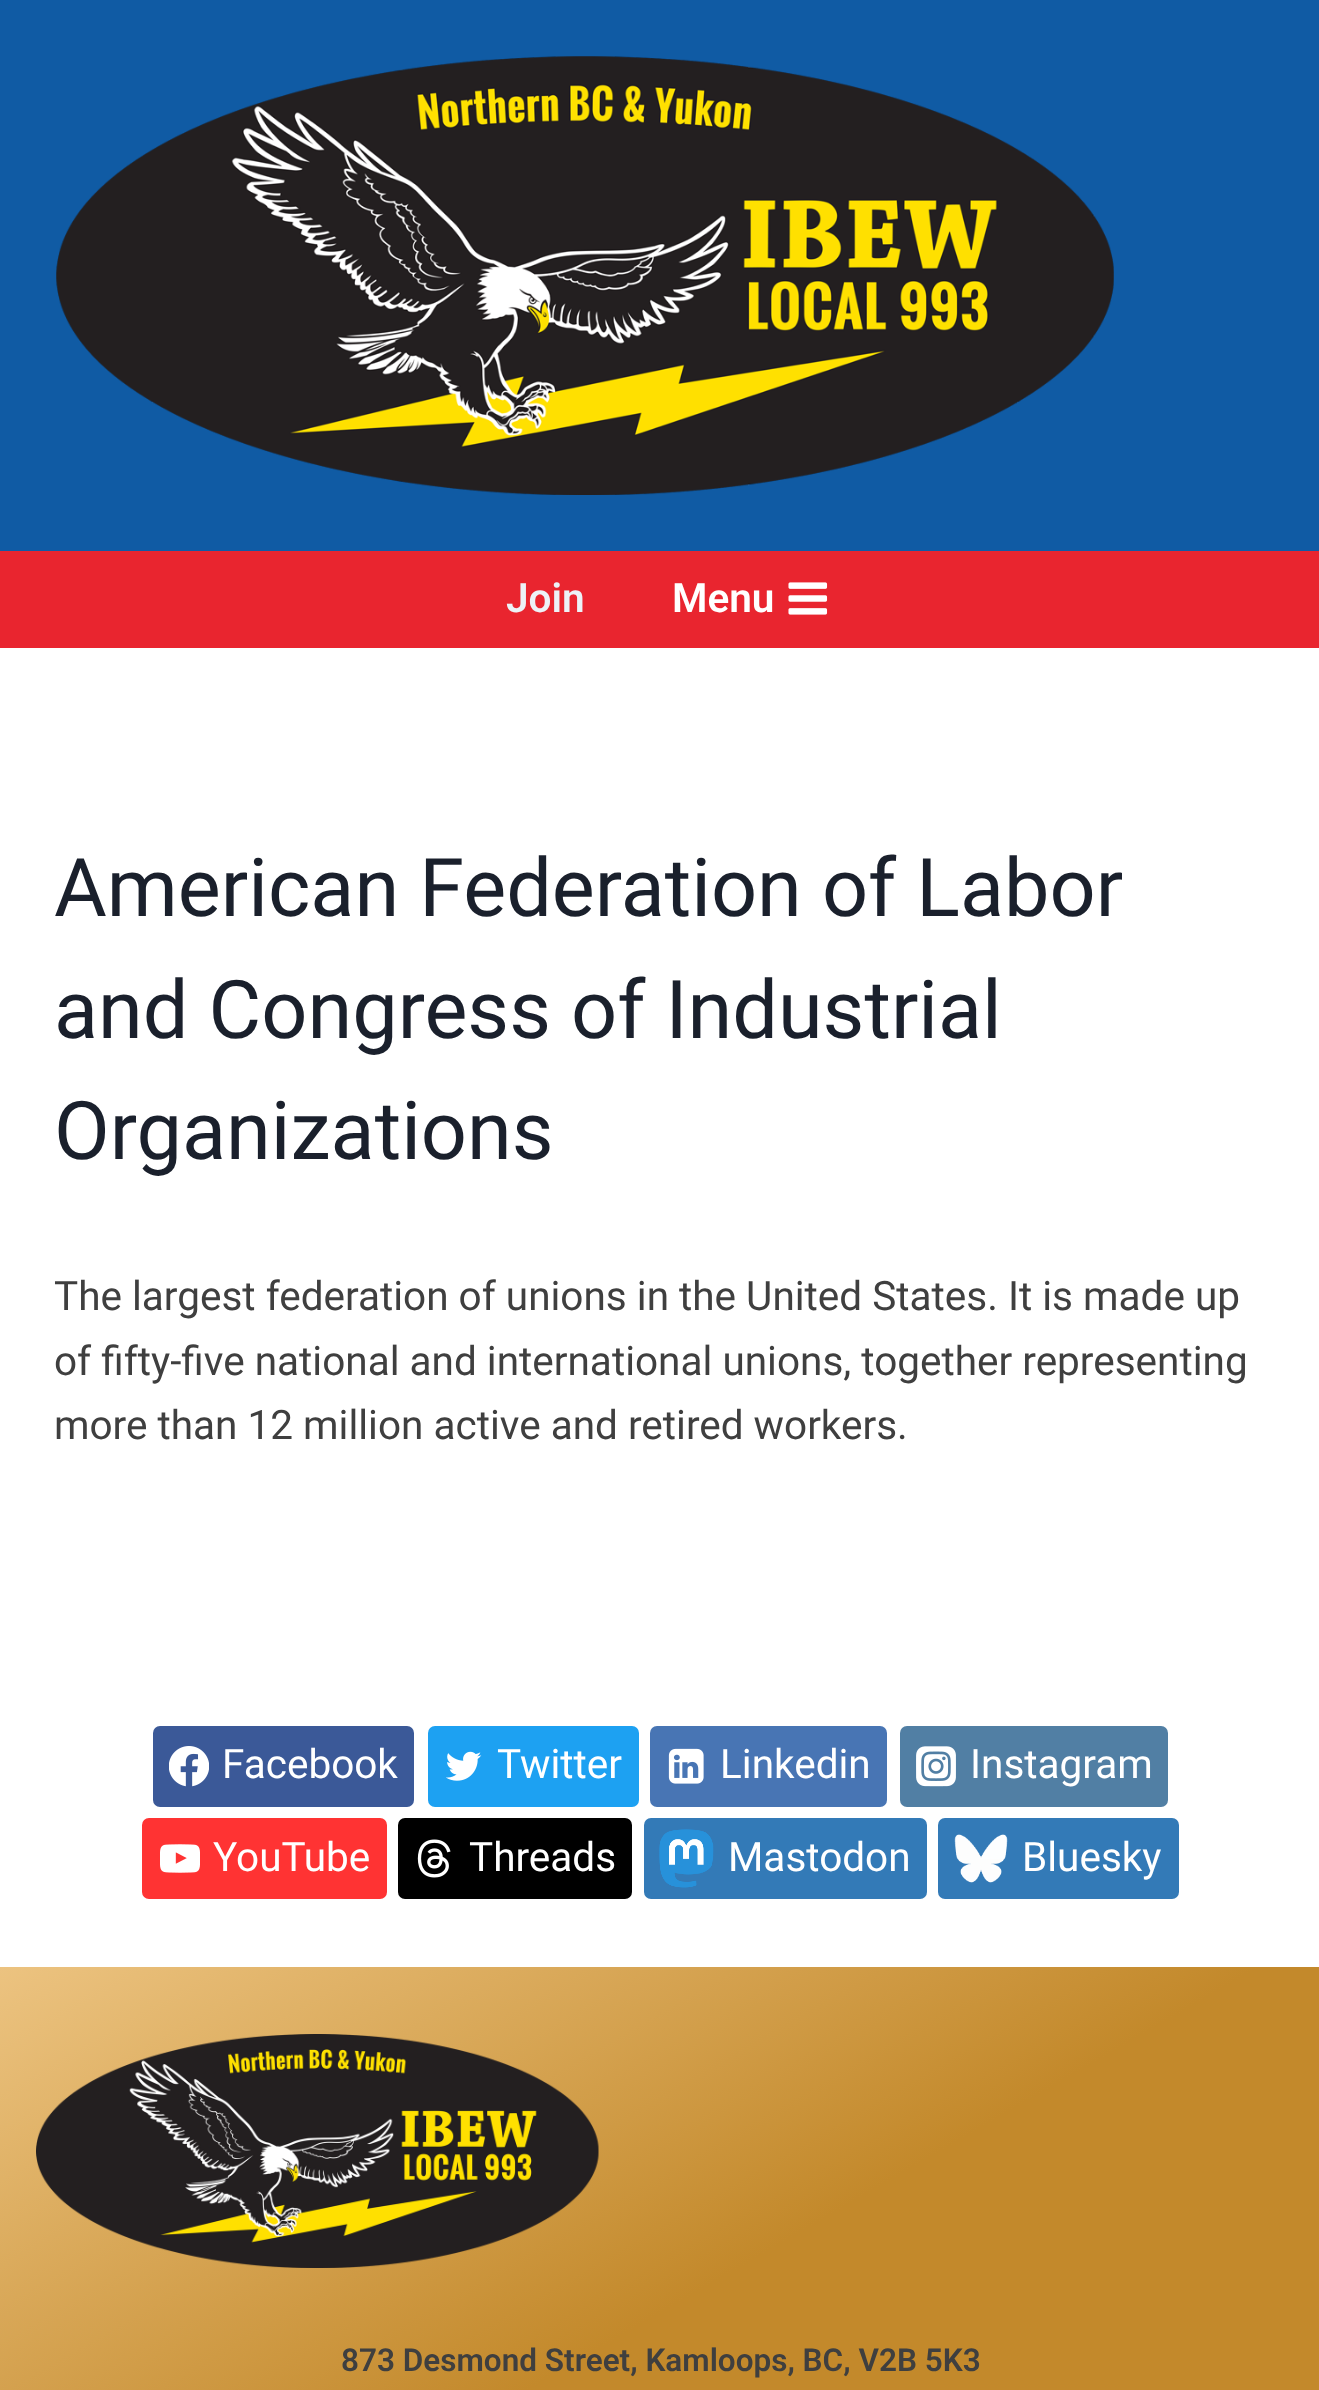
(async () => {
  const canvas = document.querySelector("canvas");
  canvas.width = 1319;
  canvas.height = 2390;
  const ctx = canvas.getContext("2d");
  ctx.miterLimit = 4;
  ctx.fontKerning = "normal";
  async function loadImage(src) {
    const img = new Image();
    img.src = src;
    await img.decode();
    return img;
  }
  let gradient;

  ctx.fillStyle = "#ffffff";
  ctx.fillRect(0, 0, 1319, 2390);
  ctx.fillStyle = "#105ba4";
  ctx.fillRect(0, 0, 1319, 551);
  ctx.drawImage(await loadImage("img/1.png"), 56, 56, 1058, 439);
  ctx.fillStyle = "#e9252f";
  ctx.fillRect(0, 551, 1319, 97);
  ctx.drawImage(await loadImage("img/2.png"), 788, 582, 40, 33);
  ctx.fillStyle = "#3b5998";
  ctx.beginPath();
  ctx.roundRect(153, 1726, 261, 81, 7);
  ctx.fill();
  ctx.drawImage(await loadImage("img/3.png"), 169, 1746, 40, 41);
  ctx.fillStyle = "#1da1f2";
  ctx.beginPath();
  ctx.roundRect(428, 1726, 211, 81, 7);
  ctx.fill();
  ctx.drawImage(await loadImage("img/4.png"), 446, 1751, 36, 30);
  ctx.fillStyle = "#4875b4";
  ctx.beginPath();
  ctx.roundRect(650, 1726, 237, 81, 7);
  ctx.fill();
  ctx.drawImage(await loadImage("img/5.png"), 668, 1748, 36, 36);
  ctx.fillStyle = "#517fa4";
  ctx.beginPath();
  ctx.roundRect(900, 1726, 268, 81, 7);
  ctx.fill();
  ctx.drawImage(await loadImage("img/6.png"), 916, 1746, 40, 41);
  ctx.fillStyle = "#ff3333";
  ctx.beginPath();
  ctx.roundRect(142, 1818, 245, 81, 7);
  ctx.fill();
  ctx.drawImage(await loadImage("img/7.png"), 160, 1844, 40, 29);
  ctx.fillStyle = "#000000";
  ctx.beginPath();
  ctx.roundRect(398, 1818, 234, 81, 7);
  ctx.fill();
  ctx.drawImage(await loadImage("img/8.png"), 417, 1839, 34, 39);
  ctx.fillStyle = "#337ab7";
  ctx.beginPath();
  ctx.roundRect(644, 1818, 283, 81, 7);
  ctx.fill();
  ctx.drawImage(await loadImage("img/9.png"), 659, 1829, 55, 59);
  ctx.beginPath();
  ctx.roundRect(938, 1818, 241, 81, 7);
  ctx.fill();
  ctx.drawImage(await loadImage("img/10.png"), 954, 1834, 54, 49);
  gradient = ctx.createLinearGradient(318, 1783, 1003, 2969);
  gradient.addColorStop(0, "#ecc380");
  gradient.addColorStop(0.46, "#c3892b");
  ctx.fillStyle = gradient;
  ctx.fillRect(0, 1967, 1319, 423);
  ctx.drawImage(await loadImage("img/11.png"), 36, 2034, 563, 234);
  ctx.font = "600 40.5px Roboto";
  ctx.fillStyle = "#edf2f7";
  ctx.fillText("Join", 506, 612);
  ctx.fillStyle = "#ffffff";
  ctx.fillText("Menu", 672, 612);
  ctx.font = "81px Roboto";
  ctx.fillStyle = "#1a202c";
  for (const [text, x, y] of [
    ["American Federation of Labor", 54, 916],
    ["and Congress of Industrial", 54, 1038],
    ["Organizations", 54, 1159],
  ]) {
    ctx.fillText(text, x, y);
  }
  ctx.font = "40.5px Roboto";
  ctx.fillStyle = "#3f3f3f";
  for (const [text, x, y] of [
    ["The largest federation of unions in the United States. It is made up", 54, 1310],
    ["of fifty-five national and international unions, together representing", 54, 1375],
    ["more than 12 million active and retired workers.", 54, 1439],
  ]) {
    ctx.fillText(text, x, y);
  }
  ctx.fillStyle = "#ffffff";
  for (const [text, x, y] of [
    ["Facebook", 222, 1778],
    ["Twitter", 497, 1778],
    ["Linkedin", 720, 1778],
    ["Instagram", 970, 1778],
    ["YouTube", 213, 1871],
    ["Threads", 469, 1871],
    ["Mastodon", 728, 1871],
    ["Bluesky", 1022, 1871],
  ]) {
    ctx.fillText(text, x, y);
  }
  ctx.font = "600 31.5px Roboto";
  ctx.fillStyle = "#3f3f3f";
  ctx.fillText("873 Desmond Street, Kamloops, BC, V2B 5K3", 341, 2371);
})();
